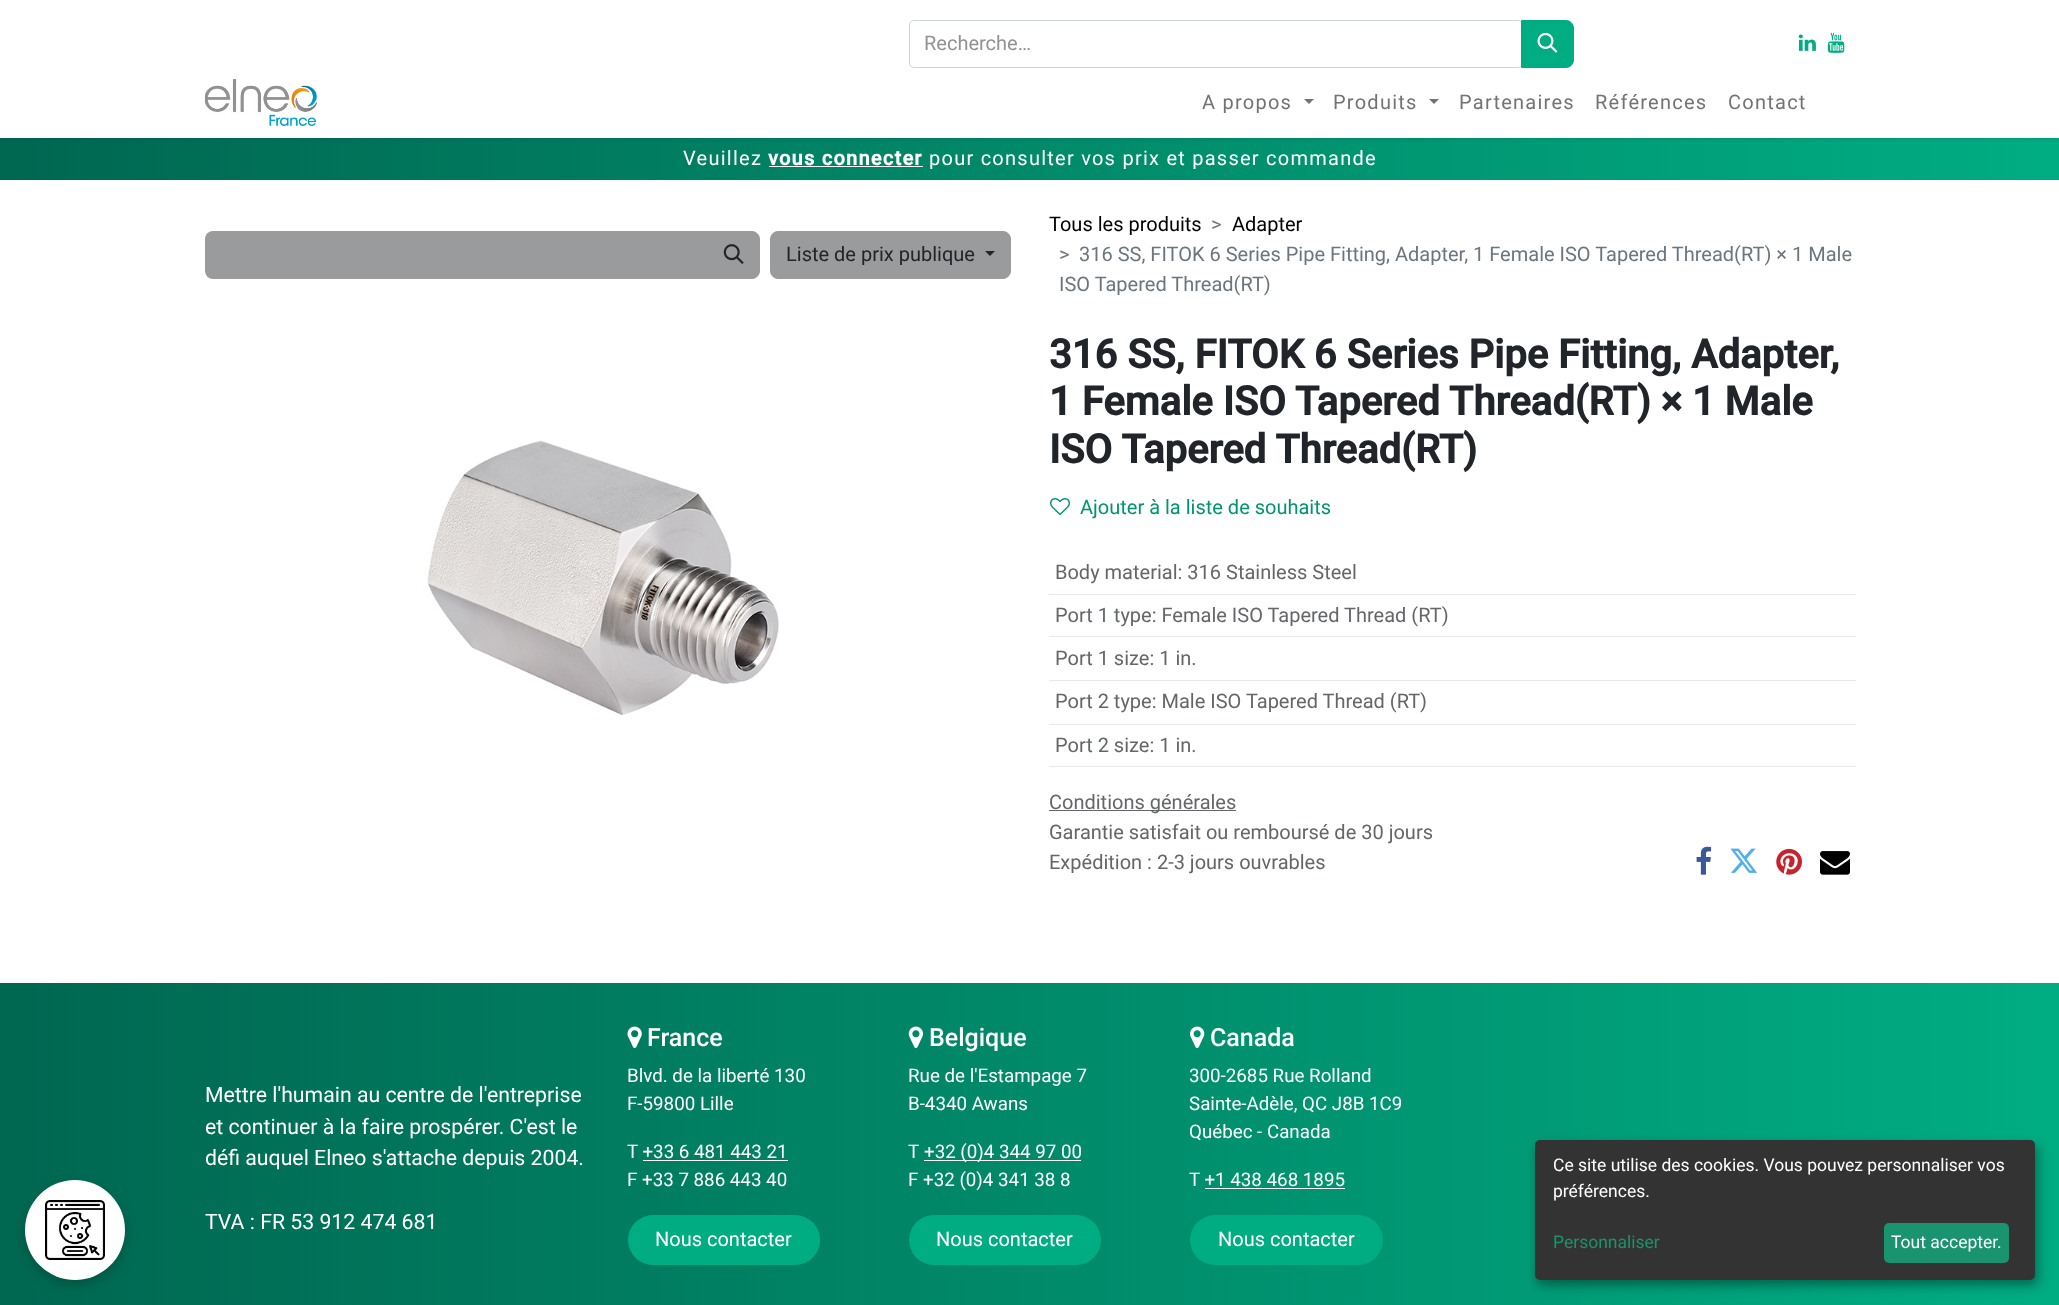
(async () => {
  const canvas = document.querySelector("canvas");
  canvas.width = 2059;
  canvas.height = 1305;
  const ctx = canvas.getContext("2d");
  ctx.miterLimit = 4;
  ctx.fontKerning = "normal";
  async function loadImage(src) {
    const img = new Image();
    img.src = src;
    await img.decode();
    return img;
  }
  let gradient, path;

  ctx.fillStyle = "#ffffff";
  ctx.fillRect(0, 0, 2059, 1305);
  gradient = ctx.createLinearGradient(0, 159, 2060, 159);
  gradient.addColorStop(0, "#006751");
  gradient.addColorStop(1, "#00ad83");
  ctx.fillStyle = gradient;
  ctx.fillRect(0, 138, 2059, 42);
  ctx.fillStyle = "rgba(0, 0, 0, 0.1)";
  ctx.filter = "blur(2px)";
  ctx.beginPath();
  ctx.rect(0, 1, 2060, 138);
  ctx.fill();
  ctx.filter = "none";
  ctx.fillStyle = "#ffffff";
  ctx.fillRect(0, 0, 2059, 138);
  ctx.beginPath();
  ctx.roundRect(909.5, 20.5, 613, 47, 4.5);
  ctx.strokeStyle = "#ced4da";
  ctx.stroke();
  ctx.fillStyle = "#00ad83";
  ctx.beginPath();
  ctx.roundRect(1521.5, 20.5, 52, 47, [0, 7.5, 7.5, 0]);
  ctx.fill();
  ctx.strokeStyle = "#00ad83";
  ctx.stroke();
  ctx.drawImage(await loadImage("img/1.png"), 1537, 32, 21, 21);
  ctx.drawImage(await loadImage("img/2.png"), 1798, 34, 18, 17);
  ctx.drawImage(await loadImage("img/3.png"), 1827, 32, 18, 21);
  ctx.drawImage(await loadImage("img/4.png"), 205, 79, 113, 49);
  ctx.fillStyle = "#737373";
  path = new Path2D("M1304 99H1314L1309 104Z");
  ctx.fill(path);
  path = new Path2D("M1429 99H1439L1434 104Z");
  ctx.fill(path);
  ctx.fillStyle = "#ffffff";
  ctx.fillRect(769, 166, 154, 1);
  ctx.fillStyle = "#9a9b9c";
  ctx.beginPath();
  ctx.roundRect(205, 231, 504, 48, [8, 0, 0, 8]);
  ctx.fill();
  ctx.beginPath();
  ctx.roundRect(708.5, 231.5, 51, 47, [0, 7.5, 7.5, 0]);
  ctx.fill();
  ctx.strokeStyle = "#9a9b9c";
  ctx.stroke();
  ctx.drawImage(await loadImage("img/5.png"), 723, 244, 21, 20);
  ctx.beginPath();
  ctx.roundRect(770.5, 231.5, 240, 47, 7.5);
  ctx.fill();
  ctx.stroke();
  ctx.fillStyle = "#212529";
  path = new Path2D("M985 251H995L990 256Z");
  ctx.fill(path);
  ctx.drawImage(await loadImage("img/6.png"), 427, 440, 352, 275);
  ctx.drawImage(await loadImage("img/7.png"), 1050, 498, 20, 18);
  for (const [x, y, w, h, color] of [
    [1049, 594, 807, 1, "#e8e8e8"],
    [1049, 636, 807, 1, "#e8e8e8"],
    [1049, 680, 807, 1, "#e8e8e8"],
    [1049, 724, 807, 1, "#e8e8e8"],
    [1049, 766, 807, 1, "#e8e8e8"],
    [1049, 810, 187, 1, "#646669"],
  ]) {
    ctx.fillStyle = color;
    ctx.fillRect(x, y, w, h);
  }
  ctx.drawImage(await loadImage("img/8.png"), 1696, 846, 16, 29);
  ctx.drawImage(await loadImage("img/9.png"), 1730, 848, 27, 25);
  ctx.drawImage(await loadImage("img/10.png"), 1776, 848, 26, 27);
  ctx.drawImage(await loadImage("img/11.png"), 1820, 851, 30, 24);
  gradient = ctx.createLinearGradient(0, 1144, 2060, 1144);
  gradient.addColorStop(0, "#006751");
  gradient.addColorStop(1, "#00ad83");
  ctx.fillStyle = gradient;
  ctx.fillRect(0, 983, 2059, 322);
  ctx.drawImage(await loadImage("img/12.png"), 627, 1026, 15, 22);
  ctx.fillStyle = "#ffffff";
  ctx.fillRect(643, 1160, 145, 1);
  ctx.fillStyle = "#00ad83";
  ctx.beginPath();
  ctx.roundRect(628, 1215, 192, 50, 25);
  ctx.fill();
  ctx.drawImage(await loadImage("img/13.png"), 908, 1026, 15, 22);
  ctx.fillStyle = "#ffffff";
  ctx.fillRect(924, 1160, 157, 1);
  ctx.fillStyle = "#00ad83";
  ctx.beginPath();
  ctx.roundRect(909, 1215, 192, 50, 25);
  ctx.fill();
  ctx.drawImage(await loadImage("img/14.png"), 1190, 1026, 15, 22);
  ctx.fillStyle = "#ffffff";
  ctx.fillRect(1205, 1188, 140, 1);
  ctx.fillStyle = "#00ad83";
  ctx.beginPath();
  ctx.roundRect(1190, 1215, 193, 50, 25);
  ctx.fill();
  ctx.fillStyle = "rgba(0, 0, 0, 0.2)";
  ctx.filter = "blur(6px)";
  ctx.beginPath();
  ctx.roundRect(25, 1185, 100, 100, 50);
  ctx.fill();
  ctx.filter = "none";
  ctx.fillStyle = "#ffffff";
  ctx.beginPath();
  ctx.arc(75, 1230, 50, 0, Math.PI * 2);
  ctx.fill();
  ctx.drawImage(await loadImage("img/15.png"), 45, 1200, 60, 60);
  ctx.fillStyle = "rgba(0, 0, 0, 0.19)";
  ctx.filter = "blur(6px)";
  ctx.beginPath();
  ctx.roundRect(1541, 1146, 500, 140, 5);
  ctx.fill();
  ctx.filter = "none";
  ctx.fillStyle = "rgba(0, 0, 0, 0.2)";
  ctx.filter = "blur(4px)";
  ctx.beginPath();
  ctx.roundRect(1535, 1145, 500, 140, 5);
  ctx.fill();
  ctx.filter = "none";
  ctx.fillStyle = "#333333";
  ctx.beginPath();
  ctx.roundRect(1535, 1140, 500, 140, 5);
  ctx.fill();
  ctx.fillStyle = "#1a936f";
  ctx.beginPath();
  ctx.roundRect(1884, 1223, 125, 40, 5);
  ctx.fill();
  ctx.font = "20px Roboto";
  ctx.fillStyle = "#909294";
  ctx.fillText("Recherche…", 924, 50);
  ctx.letterSpacing = "1.25px";
  ctx.fillStyle = "#737373";
  for (const [text, x, y] of [
    ["A propos", 1202, 109],
    ["Produits", 1333, 109],
    ["Partenaires", 1459, 109],
    ["Références", 1595, 109],
    ["Contact", 1728, 109],
  ]) {
    ctx.fillText(text, x, y);
  }
  ctx.fillStyle = "#ffffff";
  ctx.fillText("Veuillez", 683, 165);
  ctx.font = "bold 20px Roboto";
  ctx.fillText("vous connecter", 768, 165);
  ctx.font = "20px Roboto";
  ctx.fillText("pour consulter vos prix et passer commande", 929, 165);
  ctx.letterSpacing = "0px";
  ctx.fillStyle = "#212529";
  ctx.fillText("Liste de prix publique", 786, 261);
  ctx.fillStyle = "#000000";
  ctx.fillText("Tous les produits", 1049, 231);
  ctx.fillStyle = "#6c757d";
  ctx.fillText(">", 1211, 231);
  ctx.fillStyle = "#000000";
  ctx.fillText("Adapter", 1232, 231);
  ctx.fillStyle = "#6c757d";
  for (const [text, x, y] of [
    [">", 1059, 261],
    ["316 SS, FITOK 6 Series Pipe Fitting, Adapter, 1 Female ISO Tapered Thread(RT) × 1 Male", 1079, 261],
    ["ISO Tapered Thread(RT)", 1059, 291],
  ]) {
    ctx.fillText(text, x, y);
  }
  ctx.font = "bold 40px Roboto";
  ctx.fillStyle = "#212529";
  for (const [text, x, y] of [
    ["316 SS, FITOK 6 Series Pipe Fitting, Adapter,", 1049, 368],
    ["1 Female ISO Tapered Thread(RT) × 1 Male", 1049, 415],
    ["ISO Tapered Thread(RT)", 1049, 463],
  ]) {
    ctx.fillText(text, x, y);
  }
  ctx.font = "20px Roboto";
  ctx.fillStyle = "#009470";
  ctx.fillText("Ajouter à la liste de souhaits", 1080, 514);
  ctx.fillStyle = "#646669";
  for (const [text, x, y] of [
    ["Body material: 316 Stainless Steel", 1055, 579],
    ["Port 1 type: Female ISO Tapered Thread (RT)", 1055, 622],
    ["Port 1 size: 1 in.", 1055, 665],
    ["Port 2 type: Male ISO Tapered Thread (RT)", 1055, 708],
    ["Port 2 size: 1 in.", 1055, 752],
    ["Conditions générales", 1049, 809],
    ["Garantie satisfait ou remboursé de 30 jours", 1049, 839],
    ["Expédition : 2-3 jours ouvrables", 1049, 869],
  ]) {
    ctx.fillText(text, x, y);
  }
  ctx.font = "21.25px Roboto";
  ctx.fillStyle = "#ffffff";
  for (const [text, x, y] of [
    ["Mettre l'humain au centre de l'entreprise", 205, 1102],
    ["et continuer à la faire prospérer. C'est le", 205, 1134],
    ["défi auquel Elneo s'attache depuis 2004.", 205, 1165],
    ["TVA : FR 53 912 474 681", 205, 1229],
  ]) {
    ctx.fillText(text, x, y);
  }
  ctx.font = "500 25px Roboto";
  ctx.fillText("France", 647, 1046);
  ctx.font = "18.75px Roboto";
  for (const [text, x, y] of [
    ["Blvd. de la liberté 130", 627, 1082],
    ["F-59800 Lille", 627, 1110],
    ["T +33 6 481 443 21", 627, 1158],
    ["F +33 7 886 443 40", 627, 1186],
  ]) {
    ctx.fillText(text, x, y);
  }
  ctx.font = "20px Roboto";
  ctx.fillText("Nous contacter", 655, 1246);
  ctx.font = "500 25px Roboto";
  ctx.fillText("Belgique", 929, 1046);
  ctx.font = "18.75px Roboto";
  for (const [text, x, y] of [
    ["Rue de l'Estampage 7", 908, 1082],
    ["B-4340 Awans", 908, 1110],
    ["T", 908, 1158],
    ["+32 (0)4 344 97 00", 924, 1158],
    ["F +32 (0)4 341 38 8", 908, 1186],
  ]) {
    ctx.fillText(text, x, y);
  }
  ctx.font = "20px Roboto";
  ctx.fillText("Nous contacter", 936, 1246);
  ctx.font = "500 25px Roboto";
  ctx.fillText("Canada", 1210, 1046);
  ctx.font = "18.75px Roboto";
  for (const [text, x, y] of [
    ["300-2685 Rue Rolland", 1189, 1082],
    ["Sainte-Adèle, QC J8B 1C9", 1189, 1110],
    ["Québec - Canada", 1189, 1138],
    ["T +1 438 468 1895", 1189, 1186],
  ]) {
    ctx.fillText(text, x, y);
  }
  ctx.font = "20px Roboto";
  ctx.fillText("Nous contacter", 1218, 1246);
  ctx.font = "17.5px Roboto";
  ctx.fillText("Ce site utilise des cookies. Vous pouvez personnaliser vos", 1553, 1171);
  ctx.fillText("préférences.", 1553, 1197);
  ctx.fillStyle = "#1a936f";
  ctx.fillText("Personnaliser", 1553, 1248);
  ctx.fillStyle = "#ffffff";
  ctx.fillText("Tout accepter.", 1891, 1248);
})();
